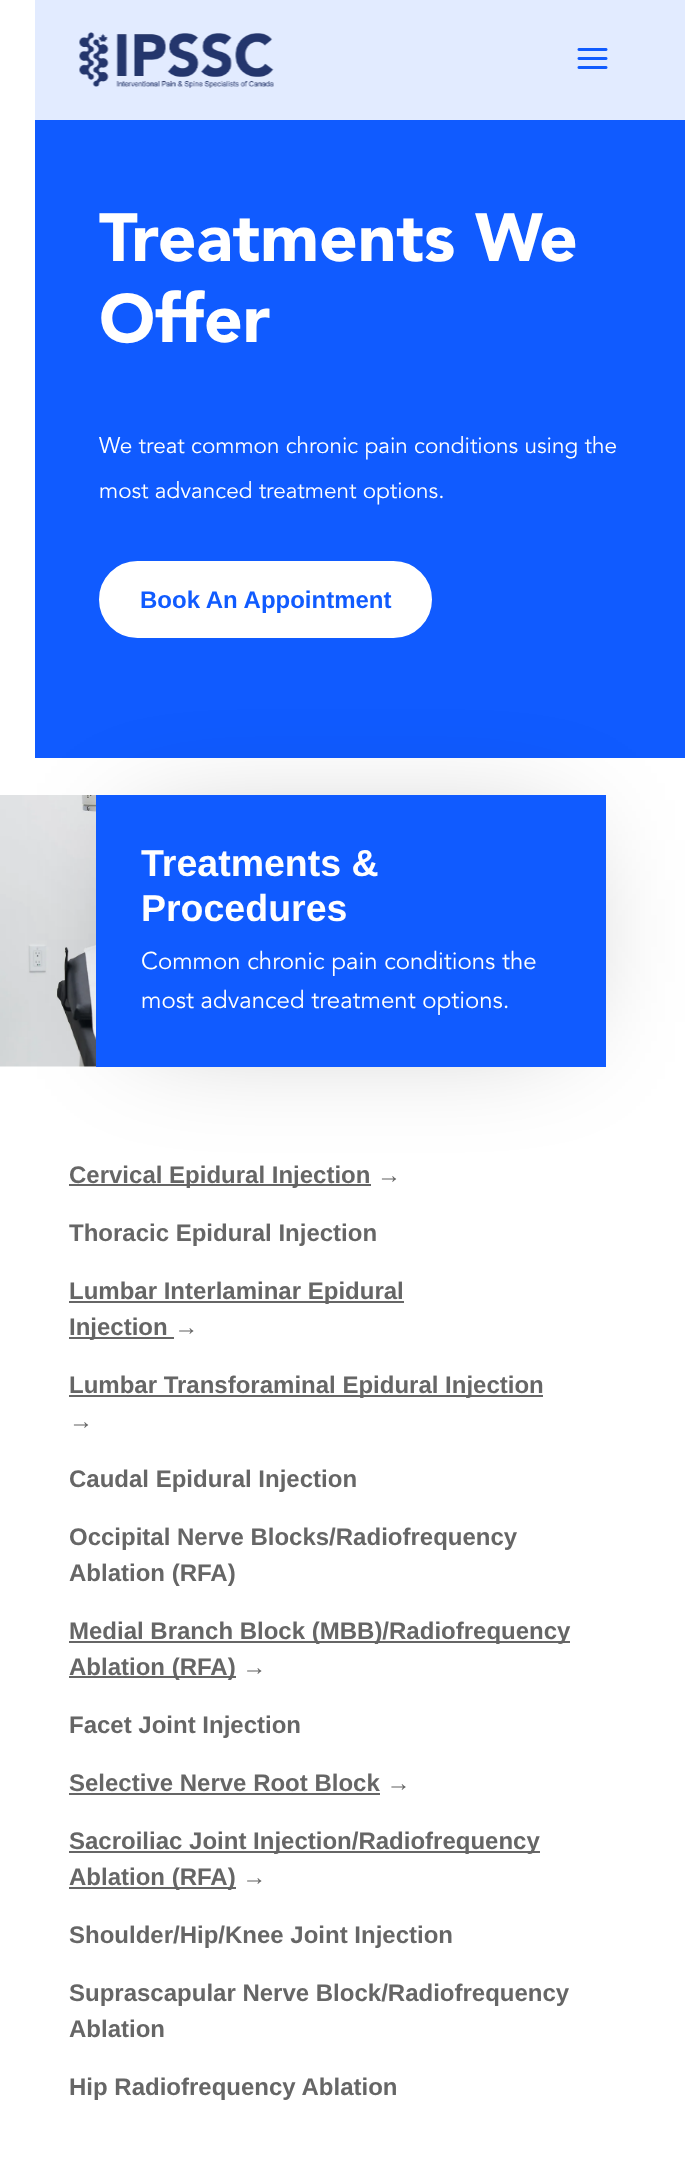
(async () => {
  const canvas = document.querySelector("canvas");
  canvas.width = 685;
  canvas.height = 2184;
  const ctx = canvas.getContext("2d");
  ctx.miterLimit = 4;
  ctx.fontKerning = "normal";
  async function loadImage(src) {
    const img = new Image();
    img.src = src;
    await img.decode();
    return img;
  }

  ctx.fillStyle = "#ffffff";
  ctx.fillRect(0, 0, 685, 2184);
  ctx.fillStyle = "#e2ebff";
  ctx.fillRect(35, 0, 650, 120);
  ctx.drawImage(await loadImage("img/1.png"), 79, 32, 195, 56);
  ctx.drawImage(await loadImage("img/2.png"), 577, 48, 31, 21);
  ctx.fillStyle = "#105bff";
  ctx.fillRect(35, 120, 650, 638);
  ctx.fillStyle = "#ffffff";
  ctx.beginPath();
  ctx.roundRect(100.5, 562.5, 330, 74, 37);
  ctx.fill();
  ctx.strokeStyle = "#ffffff";
  ctx.lineWidth = 3;
  ctx.stroke();
  ctx.drawImage(await loadImage("img/3.png"), 0, 795, 96, 272);
  ctx.fillStyle = "rgba(0, 0, 0, 0.3)";
  ctx.filter = "blur(60px)";
  ctx.beginPath();
  ctx.rect(141, 840, 420, 182);
  ctx.fill();
  ctx.filter = "none";
  for (const [x, y, w, h, color] of [
    [96, 795, 510, 272, "#105bff"],
    [69, 1184, 302, 2, "#666666"],
    [69, 1301, 335, 2, "#666666"],
    [69, 1337, 105, 2, "#666666"],
    [69, 1395, 474, 2, "#666666"],
    [69, 1641, 501, 2, "#666666"],
    [69, 1676, 167, 2, "#666666"],
    [69, 1793, 311, 2, "#666666"],
    [69, 1851, 471, 2, "#666666"],
    [69, 1887, 167, 2, "#666666"],
  ]) {
    ctx.fillStyle = color;
    ctx.fillRect(x, y, w, h);
  }
  ctx.font = "900 67.5px Avenir";
  ctx.fillStyle = "#ffffff";
  ctx.fillText("Treatments We", 99, 261);
  ctx.fillText("Offer", 99, 342);
  ctx.font = "22.5px Avenir";
  ctx.fillText("We treat common chronic pain conditions using the", 99, 453);
  ctx.fillText("most advanced treatment options.", 99, 498);
  ctx.font = "bold 24px Liberation Sans";
  ctx.fillStyle = "#105bff";
  ctx.fillText("Book An Appointment", 140, 608);
  ctx.font = "bold 37.5px Liberation Sans";
  ctx.fillStyle = "#ffffff";
  ctx.fillText("Treatments &", 141, 876);
  ctx.fillText("Procedures", 141, 921);
  ctx.font = "24px Avenir";
  ctx.fillText("Common chronic pain conditions the", 141, 969);
  ctx.fillText("most advanced treatment options.", 141, 1008);
  ctx.font = "bold 24px Liberation Sans";
  ctx.fillStyle = "#666666";
  for (const [text, x, y] of [
    ["Cervical Epidural Injection →", 69, 1183],
    ["Thoracic Epidural Injection", 69, 1241],
    ["Lumbar Interlaminar Epidural", 69, 1299],
    ["Injection →", 69, 1335],
    ["Lumbar Transforaminal Epidural Injection", 69, 1393],
    ["→", 69, 1429],
    ["Caudal Epidural Injection", 69, 1487],
    ["Occipital Nerve Blocks/Radiofrequency", 69, 1545],
    ["Ablation (RFA)", 69, 1581],
    ["Medial Branch Block (MBB)/Radiofrequency", 69, 1639],
    ["Ablation (RFA) →", 69, 1675],
    ["Facet Joint Injection", 69, 1733],
    ["Selective Nerve Root Block →", 69, 1791],
    ["Sacroiliac Joint Injection/Radiofrequency", 69, 1849],
    ["Ablation (RFA) →", 69, 1885],
    ["Shoulder/Hip/Knee Joint Injection", 69, 1943],
    ["Suprascapular Nerve Block/Radiofrequency", 69, 2001],
    ["Ablation", 69, 2037],
    ["Hip Radiofrequency Ablation", 69, 2095],
  ]) {
    ctx.fillText(text, x, y);
  }
})();
